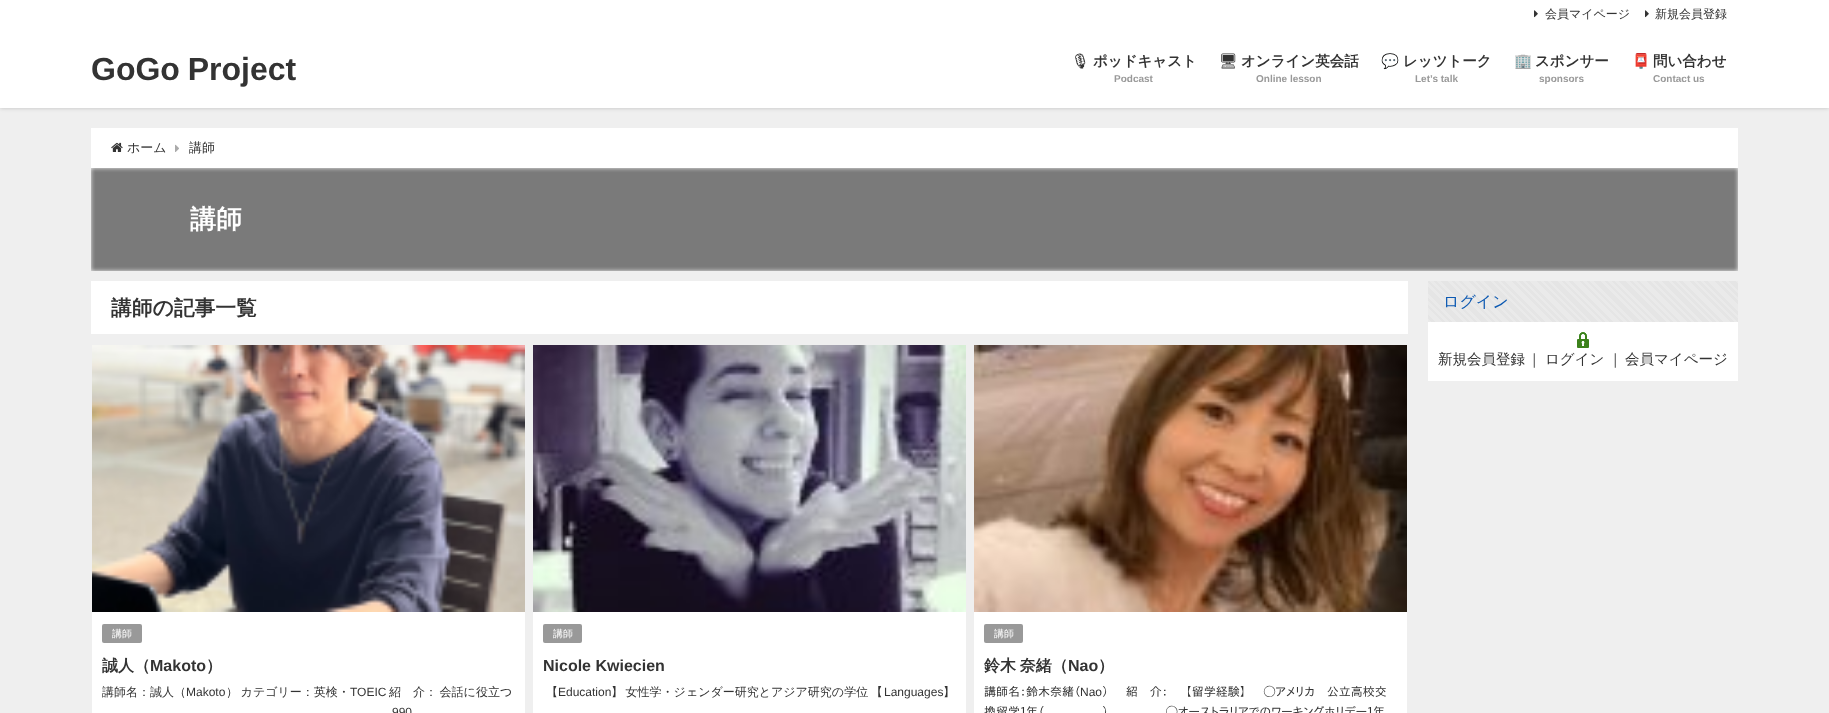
(async () => {
  const canvas = document.querySelector("canvas");
  canvas.width = 1829;
  canvas.height = 713;
  const ctx = canvas.getContext("2d");
  ctx.miterLimit = 4;
  ctx.fontKerning = "normal";
  async function loadImage(src) {
    const img = new Image();
    img.src = src;
    await img.decode();
    return img;
  }
  let gradient;

  ctx.fillStyle = "#efefef";
  ctx.fillRect(0, 0, 1829, 713);
  ctx.fillStyle = "rgba(0, 0, 0, 0.2)";
  ctx.filter = "blur(2px)";
  ctx.beginPath();
  ctx.rect(0, 0, 1829, 108);
  ctx.fill();
  ctx.filter = "none";
  ctx.fillStyle = "#ffffff";
  ctx.fillRect(0, 0, 1829, 108);
  ctx.drawImage(await loadImage("img/1.png"), 1534, 10, 4, 8);
  ctx.drawImage(await loadImage("img/1.png"), 1645, 10, 4, 8);
  ctx.save();
  ctx.beginPath();
  ctx.rect(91, 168, 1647, 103);
  ctx.clip();
  ctx.fillStyle = "#7a7a7a";
  ctx.filter = "blur(2px)";
  ctx.beginPath();
  ctx.rect(91, 168, 1647, 103);
  ctx.fill();
  ctx.filter = "none";
  ctx.restore();
  ctx.fillRect(91, 128, 1647, 40);
  ctx.drawImage(await loadImage("img/2.png"), 111, 142, 12, 10);
  ctx.drawImage(await loadImage("img/3.png"), 175, 144, 4, 8);
  ctx.fillRect(91, 281, 1317, 53);
  ctx.fillRect(92, 612, 433, 101);
  ctx.drawImage(await loadImage("img/4.png"), 92, 345, 433, 267);
  ctx.fillStyle = "#999999";
  ctx.beginPath();
  ctx.roundRect(102, 624, 40, 19, 2);
  ctx.fill();
  ctx.fillStyle = "#ffffff";
  ctx.fillRect(533, 612, 433, 101);
  ctx.drawImage(await loadImage("img/5.png"), 533, 345, 433, 267);
  ctx.fillStyle = "#999999";
  ctx.beginPath();
  ctx.roundRect(543, 624, 39, 19, 2);
  ctx.fill();
  ctx.fillStyle = "#ffffff";
  ctx.fillRect(974, 612, 433, 101);
  ctx.drawImage(await loadImage("img/6.png"), 974, 345, 433, 267);
  ctx.fillStyle = "#999999";
  ctx.beginPath();
  ctx.roundRect(984, 624, 39, 19, 2);
  ctx.fill();
  ctx.fillStyle = "#ffffff";
  ctx.fillRect(1428, 322, 310, 59);
  gradient = ctx.createLinearGradient(1495, 389, 1673, 211);
  gradient.addColorStop(0, "#eaeaea");
  gradient.addColorStop(0.01, "#eaeaea");
  gradient.addColorStop(0.01, "#e5e5e5");
  gradient.addColorStop(0.02, "#e5e5e5");
  gradient.addColorStop(0.02, "#eaeaea");
  gradient.addColorStop(0.04, "#eaeaea");
  gradient.addColorStop(0.04, "#e5e5e5");
  gradient.addColorStop(0.05, "#e5e5e5");
  gradient.addColorStop(0.05, "#eaeaea");
  gradient.addColorStop(0.06, "#eaeaea");
  gradient.addColorStop(0.06, "#e5e5e5");
  gradient.addColorStop(0.07, "#e5e5e5");
  gradient.addColorStop(0.07, "#eaeaea");
  gradient.addColorStop(0.08, "#eaeaea");
  gradient.addColorStop(0.08, "#e5e5e5");
  gradient.addColorStop(0.1, "#e5e5e5");
  gradient.addColorStop(0.1, "#eaeaea");
  gradient.addColorStop(0.11, "#eaeaea");
  gradient.addColorStop(0.11, "#e5e5e5");
  gradient.addColorStop(0.12, "#e5e5e5");
  gradient.addColorStop(0.12, "#eaeaea");
  gradient.addColorStop(0.13, "#eaeaea");
  gradient.addColorStop(0.13, "#e5e5e5");
  gradient.addColorStop(0.14, "#e5e5e5");
  gradient.addColorStop(0.14, "#eaeaea");
  gradient.addColorStop(0.15, "#eaeaea");
  gradient.addColorStop(0.15, "#e5e5e5");
  gradient.addColorStop(0.17, "#e5e5e5");
  gradient.addColorStop(0.17, "#eaeaea");
  gradient.addColorStop(0.18, "#eaeaea");
  gradient.addColorStop(0.18, "#e5e5e5");
  gradient.addColorStop(0.19, "#e5e5e5");
  gradient.addColorStop(0.19, "#eaeaea");
  gradient.addColorStop(0.2, "#eaeaea");
  gradient.addColorStop(0.2, "#e5e5e5");
  gradient.addColorStop(0.21, "#e5e5e5");
  gradient.addColorStop(0.21, "#eaeaea");
  gradient.addColorStop(0.23, "#eaeaea");
  gradient.addColorStop(0.23, "#e5e5e5");
  gradient.addColorStop(0.24, "#e5e5e5");
  gradient.addColorStop(0.24, "#eaeaea");
  gradient.addColorStop(0.25, "#eaeaea");
  gradient.addColorStop(0.25, "#e5e5e5");
  gradient.addColorStop(0.26, "#e5e5e5");
  gradient.addColorStop(0.26, "#eaeaea");
  gradient.addColorStop(0.27, "#eaeaea");
  gradient.addColorStop(0.27, "#e5e5e5");
  gradient.addColorStop(0.29, "#e5e5e5");
  gradient.addColorStop(0.29, "#eaeaea");
  gradient.addColorStop(0.3, "#eaeaea");
  gradient.addColorStop(0.3, "#e5e5e5");
  gradient.addColorStop(0.31, "#e5e5e5");
  gradient.addColorStop(0.31, "#eaeaea");
  gradient.addColorStop(0.32, "#eaeaea");
  gradient.addColorStop(0.32, "#e5e5e5");
  gradient.addColorStop(0.33, "#e5e5e5");
  gradient.addColorStop(0.33, "#eaeaea");
  gradient.addColorStop(0.35, "#eaeaea");
  gradient.addColorStop(0.35, "#e5e5e5");
  gradient.addColorStop(0.36, "#e5e5e5");
  gradient.addColorStop(0.36, "#eaeaea");
  gradient.addColorStop(0.37, "#eaeaea");
  gradient.addColorStop(0.37, "#e5e5e5");
  gradient.addColorStop(0.38, "#e5e5e5");
  gradient.addColorStop(0.38, "#eaeaea");
  gradient.addColorStop(0.39, "#eaeaea");
  gradient.addColorStop(0.39, "#e5e5e5");
  gradient.addColorStop(0.4, "#e5e5e5");
  gradient.addColorStop(0.4, "#eaeaea");
  gradient.addColorStop(0.42, "#eaeaea");
  gradient.addColorStop(0.42, "#e5e5e5");
  gradient.addColorStop(0.43, "#e5e5e5");
  gradient.addColorStop(0.43, "#eaeaea");
  gradient.addColorStop(0.44, "#eaeaea");
  gradient.addColorStop(0.44, "#e5e5e5");
  gradient.addColorStop(0.45, "#e5e5e5");
  gradient.addColorStop(0.45, "#eaeaea");
  gradient.addColorStop(0.46, "#eaeaea");
  gradient.addColorStop(0.46, "#e5e5e5");
  gradient.addColorStop(0.48, "#e5e5e5");
  gradient.addColorStop(0.48, "#eaeaea");
  gradient.addColorStop(0.49, "#eaeaea");
  gradient.addColorStop(0.49, "#e5e5e5");
  gradient.addColorStop(0.5, "#e5e5e5");
  gradient.addColorStop(0.5, "#eaeaea");
  gradient.addColorStop(0.51, "#eaeaea");
  gradient.addColorStop(0.51, "#e5e5e5");
  gradient.addColorStop(0.52, "#e5e5e5");
  gradient.addColorStop(0.52, "#eaeaea");
  gradient.addColorStop(0.54, "#eaeaea");
  gradient.addColorStop(0.54, "#e5e5e5");
  gradient.addColorStop(0.55, "#e5e5e5");
  gradient.addColorStop(0.55, "#eaeaea");
  gradient.addColorStop(0.56, "#eaeaea");
  gradient.addColorStop(0.56, "#e5e5e5");
  gradient.addColorStop(0.57, "#e5e5e5");
  gradient.addColorStop(0.57, "#eaeaea");
  gradient.addColorStop(0.58, "#eaeaea");
  gradient.addColorStop(0.58, "#e5e5e5");
  gradient.addColorStop(0.6, "#e5e5e5");
  gradient.addColorStop(0.6, "#eaeaea");
  gradient.addColorStop(0.61, "#eaeaea");
  gradient.addColorStop(0.61, "#e5e5e5");
  gradient.addColorStop(0.62, "#e5e5e5");
  gradient.addColorStop(0.62, "#eaeaea");
  gradient.addColorStop(0.63, "#eaeaea");
  gradient.addColorStop(0.63, "#e5e5e5");
  gradient.addColorStop(0.64, "#e5e5e5");
  gradient.addColorStop(0.64, "#eaeaea");
  gradient.addColorStop(0.65, "#eaeaea");
  gradient.addColorStop(0.65, "#e5e5e5");
  gradient.addColorStop(0.67, "#e5e5e5");
  gradient.addColorStop(0.67, "#eaeaea");
  gradient.addColorStop(0.68, "#eaeaea");
  gradient.addColorStop(0.68, "#e5e5e5");
  gradient.addColorStop(0.69, "#e5e5e5");
  gradient.addColorStop(0.69, "#eaeaea");
  gradient.addColorStop(0.7, "#eaeaea");
  gradient.addColorStop(0.7, "#e5e5e5");
  gradient.addColorStop(0.71, "#e5e5e5");
  gradient.addColorStop(0.71, "#eaeaea");
  gradient.addColorStop(0.73, "#eaeaea");
  gradient.addColorStop(0.73, "#e5e5e5");
  gradient.addColorStop(0.74, "#e5e5e5");
  gradient.addColorStop(0.74, "#eaeaea");
  gradient.addColorStop(0.75, "#eaeaea");
  gradient.addColorStop(0.75, "#e5e5e5");
  gradient.addColorStop(0.76, "#e5e5e5");
  gradient.addColorStop(0.76, "#eaeaea");
  gradient.addColorStop(0.77, "#eaeaea");
  gradient.addColorStop(0.77, "#e5e5e5");
  gradient.addColorStop(0.79, "#e5e5e5");
  gradient.addColorStop(0.79, "#eaeaea");
  gradient.addColorStop(0.8, "#eaeaea");
  gradient.addColorStop(0.8, "#e5e5e5");
  gradient.addColorStop(0.81, "#e5e5e5");
  gradient.addColorStop(0.81, "#eaeaea");
  gradient.addColorStop(0.82, "#eaeaea");
  gradient.addColorStop(0.82, "#e5e5e5");
  gradient.addColorStop(0.83, "#e5e5e5");
  gradient.addColorStop(0.83, "#eaeaea");
  gradient.addColorStop(0.85, "#eaeaea");
  gradient.addColorStop(0.85, "#e5e5e5");
  gradient.addColorStop(0.86, "#e5e5e5");
  gradient.addColorStop(0.86, "#eaeaea");
  gradient.addColorStop(0.87, "#eaeaea");
  gradient.addColorStop(0.87, "#e5e5e5");
  gradient.addColorStop(0.88, "#e5e5e5");
  gradient.addColorStop(0.88, "#eaeaea");
  gradient.addColorStop(0.89, "#eaeaea");
  gradient.addColorStop(0.89, "#e5e5e5");
  gradient.addColorStop(0.9, "#e5e5e5");
  gradient.addColorStop(0.9, "#eaeaea");
  gradient.addColorStop(0.92, "#eaeaea");
  gradient.addColorStop(0.92, "#e5e5e5");
  gradient.addColorStop(0.93, "#e5e5e5");
  gradient.addColorStop(0.93, "#eaeaea");
  gradient.addColorStop(0.94, "#eaeaea");
  gradient.addColorStop(0.94, "#e5e5e5");
  gradient.addColorStop(0.95, "#e5e5e5");
  gradient.addColorStop(0.95, "#eaeaea");
  gradient.addColorStop(0.96, "#eaeaea");
  gradient.addColorStop(0.96, "#e5e5e5");
  gradient.addColorStop(0.98, "#e5e5e5");
  gradient.addColorStop(0.98, "#eaeaea");
  gradient.addColorStop(0.99, "#eaeaea");
  gradient.addColorStop(0.99, "#e5e5e5");
  gradient.addColorStop(1, "#e5e5e5");
  ctx.fillStyle = gradient;
  ctx.fillRect(1428, 281, 310, 41);
  ctx.drawImage(await loadImage("img/7.png"), 1577, 332, 12, 16);
  ctx.font = "500 12px WenQuanYi Zen Hei";
  ctx.fillStyle = "#333333";
  ctx.fillText("会員マイページ", 1545, 18);
  ctx.fillText("新規会員登録", 1655, 18);
  ctx.wordSpacing = "-1px";
  ctx.font = "bold 32px Liberation Sans";
  ctx.fillText("GoGo Project", 91, 80);
  ctx.wordSpacing = "0px";
  ctx.font = "bold 14.5px Noto Emoji";
  ctx.fillText("🎙", 1071, 66);
  ctx.font = "bold 14.5px WenQuanYi Zen Hei";
  ctx.fillText("ポッドキャスト", 1093, 66);
  ctx.font = "bold 10px Liberation Sans";
  ctx.fillStyle = "#999999";
  ctx.fillText("Podcast", 1114, 82);
  ctx.font = "bold 14.5px Noto Emoji";
  ctx.fillStyle = "#333333";
  ctx.fillText("🖥", 1219, 66);
  ctx.font = "bold 14.5px WenQuanYi Zen Hei";
  ctx.fillText("オンライン英会話", 1241, 66);
  ctx.font = "bold 10px Liberation Sans";
  ctx.fillStyle = "#999999";
  ctx.fillText("Online lesson", 1256, 82);
  ctx.font = "bold 14.5px Noto Color Emoji";
  ctx.fillStyle = "#333333";
  ctx.fillText("💬", 1381, 66);
  ctx.font = "bold 14.5px WenQuanYi Zen Hei";
  ctx.fillText("レッツトーク", 1403, 66);
  ctx.font = "bold 10px Liberation Sans";
  ctx.fillStyle = "#999999";
  ctx.fillText("Let’s talk", 1415, 82);
  ctx.font = "bold 14.5px Noto Color Emoji";
  ctx.fillStyle = "#333333";
  ctx.fillText("🏢", 1514, 66);
  ctx.font = "bold 14.5px WenQuanYi Zen Hei";
  ctx.fillText("スポンサー", 1535, 66);
  ctx.font = "bold 10px Liberation Sans";
  ctx.fillStyle = "#999999";
  ctx.fillText("sponsors", 1539, 82);
  ctx.font = "bold 14.5px Noto Color Emoji";
  ctx.fillStyle = "#333333";
  ctx.fillText("📮", 1632, 66);
  ctx.font = "bold 14.5px WenQuanYi Zen Hei";
  ctx.fillText("問い合わせ", 1653, 66);
  ctx.font = "bold 10px Liberation Sans";
  ctx.fillStyle = "#999999";
  ctx.fillText("Contact us", 1653, 82);
  ctx.font = "500 13px WenQuanYi Zen Hei";
  ctx.fillStyle = "#333333";
  ctx.fillText("ホーム", 127, 152);
  ctx.fillText("講師", 189, 152);
  ctx.font = "bold 26px WenQuanYi Zen Hei";
  ctx.fillStyle = "#ffffff";
  ctx.fillText("講師", 190, 228);
  ctx.font = "bold 20.75px WenQuanYi Zen Hei";
  ctx.fillStyle = "#333333";
  ctx.fillText("講師の記事一覧", 111, 315);
  ctx.font = "500 10px WenQuanYi Zen Hei";
  ctx.fillStyle = "#ffffff";
  ctx.fillText("講師", 112, 637);
  ctx.font = "bold 16px WenQuanYi Zen Hei";
  ctx.fillStyle = "#333333";
  ctx.fillText("誠人（", 102, 671);
  ctx.font = "bold 16px Liberation Sans";
  ctx.fillText("Makoto", 150, 671);
  ctx.font = "bold 16px WenQuanYi Zen Hei";
  ctx.fillText("）", 206, 671);
  ctx.font = "500 12px WenQuanYi Zen Hei";
  ctx.fillText("講師名：誠人（", 102, 696);
  ctx.font = "12px Liberation Sans";
  ctx.fillText("Makoto", 186, 696);
  ctx.wordSpacing = "-1px";
  ctx.font = "500 12px WenQuanYi Zen Hei";
  ctx.fillText("） カテゴリー：英検・", 226, 696);
  ctx.wordSpacing = "0px";
  ctx.font = "12px Liberation Sans";
  ctx.fillText("TOEIC", 350, 696);
  ctx.wordSpacing = "-1px";
  ctx.font = "500 12px WenQuanYi Zen Hei";
  ctx.fillText("紹　介： 会話に役立つ", 389, 696);
  ctx.wordSpacing = "0px";
  ctx.font = "12px Liberation Sans";
  ctx.fillText("990", 392, 716);
  ctx.font = "500 10px WenQuanYi Zen Hei";
  ctx.fillStyle = "#ffffff";
  ctx.fillText("講師", 553, 637);
  ctx.font = "bold 16px Liberation Sans";
  ctx.fillStyle = "#333333";
  ctx.fillText("Nicole Kwiecien", 543, 671);
  ctx.font = "500 12px WenQuanYi Zen Hei";
  ctx.fillText("【", 546, 696);
  ctx.font = "12px Liberation Sans";
  ctx.fillText("Education", 558, 696);
  ctx.wordSpacing = "-1px";
  ctx.font = "500 12px WenQuanYi Zen Hei";
  ctx.fillText("】 女性学・ジェンダー研究とアジア研究の学位 【", 611, 696);
  ctx.wordSpacing = "0px";
  ctx.font = "12px Liberation Sans";
  ctx.fillText("Languages", 884, 696);
  ctx.font = "500 12px WenQuanYi Zen Hei";
  ctx.fillText("】", 943, 696);
  ctx.font = "500 10px WenQuanYi Zen Hei";
  ctx.fillStyle = "#ffffff";
  ctx.fillText("講師", 994, 637);
  ctx.wordSpacing = "-1px";
  ctx.font = "bold 16px WenQuanYi Zen Hei";
  ctx.fillStyle = "#333333";
  ctx.fillText("鈴木 奈緒（", 984, 671);
  ctx.wordSpacing = "0px";
  ctx.font = "bold 16px Liberation Sans";
  ctx.fillText("Nao", 1068, 671);
  ctx.font = "bold 16px WenQuanYi Zen Hei";
  ctx.fillText("）", 1098, 671);
  ctx.font = "12px IPAPGothic";
  ctx.fillText("講師名：鈴木奈緒（", 984, 696);
  ctx.font = "12px Liberation Sans";
  ctx.fillText("Nao", 1080, 696);
  ctx.wordSpacing = "14px";
  ctx.font = "12px IPAPGothic";
  ctx.fillText("） 紹　介： 【留学経験】 ◯アメリカ　公立高校交", 1102, 696);
  ctx.wordSpacing = "0px";
  ctx.fillText("換留学１年（", 984, 716);
  ctx.wordSpacing = "54px";
  ctx.fillText("） ◯オーストラリアでのワーキングホリデー１年", 1102, 716);
  ctx.wordSpacing = "0px";
  ctx.font = "500 16px WenQuanYi Zen Hei";
  ctx.fillStyle = "#0c59b2";
  ctx.fillText("ログイン", 1443, 307);
  ctx.font = "500 14.5px WenQuanYi Zen Hei";
  ctx.fillStyle = "#333333";
  for (const [text, x, y] of [
    ["新規会員登録", 1438, 364],
    ["｜", 1527, 364],
    ["ログイン", 1545, 364],
    ["｜", 1608, 364],
    ["会員マイページ", 1625, 364],
  ]) {
    ctx.fillText(text, x, y);
  }
})();
